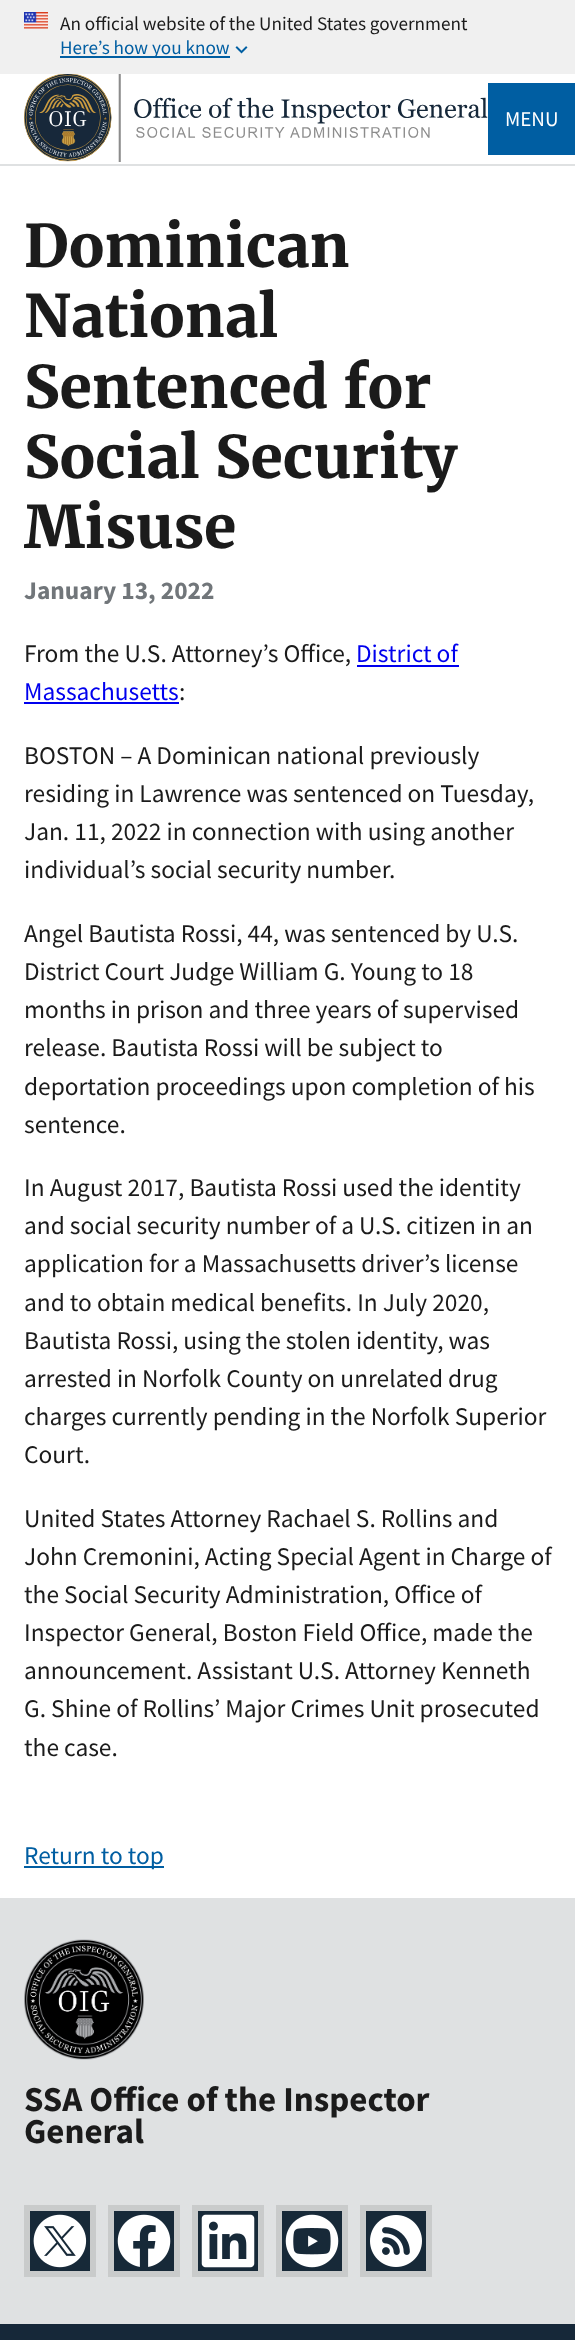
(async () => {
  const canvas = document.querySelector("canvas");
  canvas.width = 575;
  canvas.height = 2340;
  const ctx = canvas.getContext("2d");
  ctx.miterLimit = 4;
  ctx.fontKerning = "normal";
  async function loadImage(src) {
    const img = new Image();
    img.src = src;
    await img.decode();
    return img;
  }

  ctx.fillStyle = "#ffffff";
  ctx.fillRect(0, 0, 575, 2340);
  ctx.fillStyle = "#f0f0f0";
  ctx.fillRect(0, 0, 575, 74);
  ctx.drawImage(await loadImage("img/1.png"), 24, 12, 24, 17);
  ctx.fillStyle = "#005ea2";
  ctx.fillRect(60, 56, 170, 2);
  ctx.drawImage(await loadImage("img/2.png"), 235, 46, 13, 8);
  ctx.fillStyle = "#dfe1e2";
  ctx.fillRect(0, 164, 575, 2);
  ctx.drawImage(await loadImage("img/3.png"), 24, 74, 464, 88);
  for (const [x, y, w, h, color] of [
    [488, 83, 87, 72, "#005ea2"],
    [357, 665, 102, 2, "#0000ee"],
    [24, 702, 155, 2, "#0000ee"],
    [24, 1866, 140, 2, "#005ea2"],
    [0, 1898, 575, 426, "#dfe1e2"],
  ]) {
    ctx.fillStyle = color;
    ctx.fillRect(x, y, w, h);
  }
  ctx.drawImage(await loadImage("img/4.png"), 24, 1939, 120, 121);
  ctx.fillStyle = "#c9cbcb";
  ctx.fillRect(24, 2205, 72, 72);
  ctx.drawImage(await loadImage("img/5.png"), 30, 2211, 60, 60);
  ctx.fillRect(108, 2205, 72, 72);
  ctx.drawImage(await loadImage("img/6.png"), 114, 2211, 60, 60);
  ctx.fillRect(192, 2205, 72, 72);
  ctx.drawImage(await loadImage("img/7.png"), 198, 2211, 60, 60);
  ctx.fillRect(276, 2205, 72, 72);
  ctx.drawImage(await loadImage("img/8.png"), 282, 2211, 60, 60);
  ctx.fillRect(360, 2205, 72, 72);
  ctx.drawImage(await loadImage("img/9.png"), 366, 2211, 60, 60);
  ctx.fillStyle = "#162839";
  ctx.fillRect(0, 2324, 575, 16);
  ctx.font = "19.2px Source Sans Pro";
  ctx.fillStyle = "#1b1b1b";
  ctx.fillText("An official website of the United States government", 60, 30);
  ctx.fillStyle = "#005ea2";
  ctx.fillText("Here’s how you know", 60, 54);
  ctx.font = "21px Source Sans Pro";
  ctx.fillStyle = "#ffffff";
  ctx.fillText("MENU", 505, 126);
  ctx.font = "bold 58.5px Merriweather";
  ctx.fillStyle = "#1b1b1b";
  for (const [text, x, y] of [
    ["Dominican", 24, 267],
    ["National", 24, 337],
    ["Sentenced for", 24, 408],
    ["Social Security", 24, 478],
    ["Misuse", 24, 548],
  ]) {
    ctx.fillText(text, x, y);
  }
  ctx.font = "bold 25.4px Source Sans Pro";
  ctx.fillStyle = "#71767a";
  ctx.fillText("January 13, 2022", 24, 599);
  ctx.font = "25.4px Source Sans Pro";
  ctx.fillStyle = "#1b1b1b";
  ctx.fillText("From the U.S. Attorney’s Office,", 24, 662);
  ctx.fillStyle = "#0000ee";
  ctx.fillText("District of", 356, 662);
  ctx.fillText("Massachusetts", 24, 700);
  ctx.fillStyle = "#1b1b1b";
  for (const [text, x, y] of [
    [":", 179, 700],
    ["BOSTON – A Dominican national previously", 24, 764],
    ["residing in Lawrence was sentenced on Tuesday,", 24, 802],
    ["Jan. 11, 2022 in connection with using another", 24, 840],
    ["individual’s social security number.", 24, 878],
    ["Angel Bautista Rossi, 44, was sentenced by U.S.", 24, 942],
    ["District Court Judge William G. Young to 18", 24, 980],
    ["months in prison and three years of supervised", 24, 1018],
    ["release. Bautista Rossi will be subject to", 24, 1056],
    ["deportation proceedings upon completion of his", 24, 1095],
    ["sentence.", 24, 1133],
    ["In August 2017, Bautista Rossi used the identity", 24, 1196],
    ["and social security number of a U.S. citizen in an", 24, 1234],
    ["application for a Massachusetts driver’s license", 24, 1272],
    ["and to obtain medical benefits. In July 2020,", 24, 1311],
    ["Bautista Rossi, using the stolen identity, was", 24, 1349],
    ["arrested in Norfolk County on unrelated drug", 24, 1387],
    ["charges currently pending in the Norfolk Superior", 24, 1425],
    ["Court.", 24, 1463],
    ["United States Attorney Rachael S. Rollins and", 24, 1527],
    ["John Cremonini, Acting Special Agent in Charge of", 24, 1565],
    ["the Social Security Administration, Office of", 24, 1603],
    ["Inspector General, Boston Field Office, made the", 24, 1641],
    ["announcement. Assistant U.S. Attorney Kenneth", 24, 1679],
    ["G. Shine of Rollins’ Major Crimes Unit prosecuted", 24, 1717],
    ["the case.", 24, 1756],
  ]) {
    ctx.fillText(text, x, y);
  }
  ctx.fillStyle = "#005ea2";
  ctx.fillText("Return to top", 24, 1864);
  ctx.font = "bold 35px Source Sans Pro";
  ctx.fillStyle = "#1b1b1b";
  ctx.fillText("SSA Office of the Inspector", 24, 2111);
  ctx.fillText("General", 24, 2143);
})();
